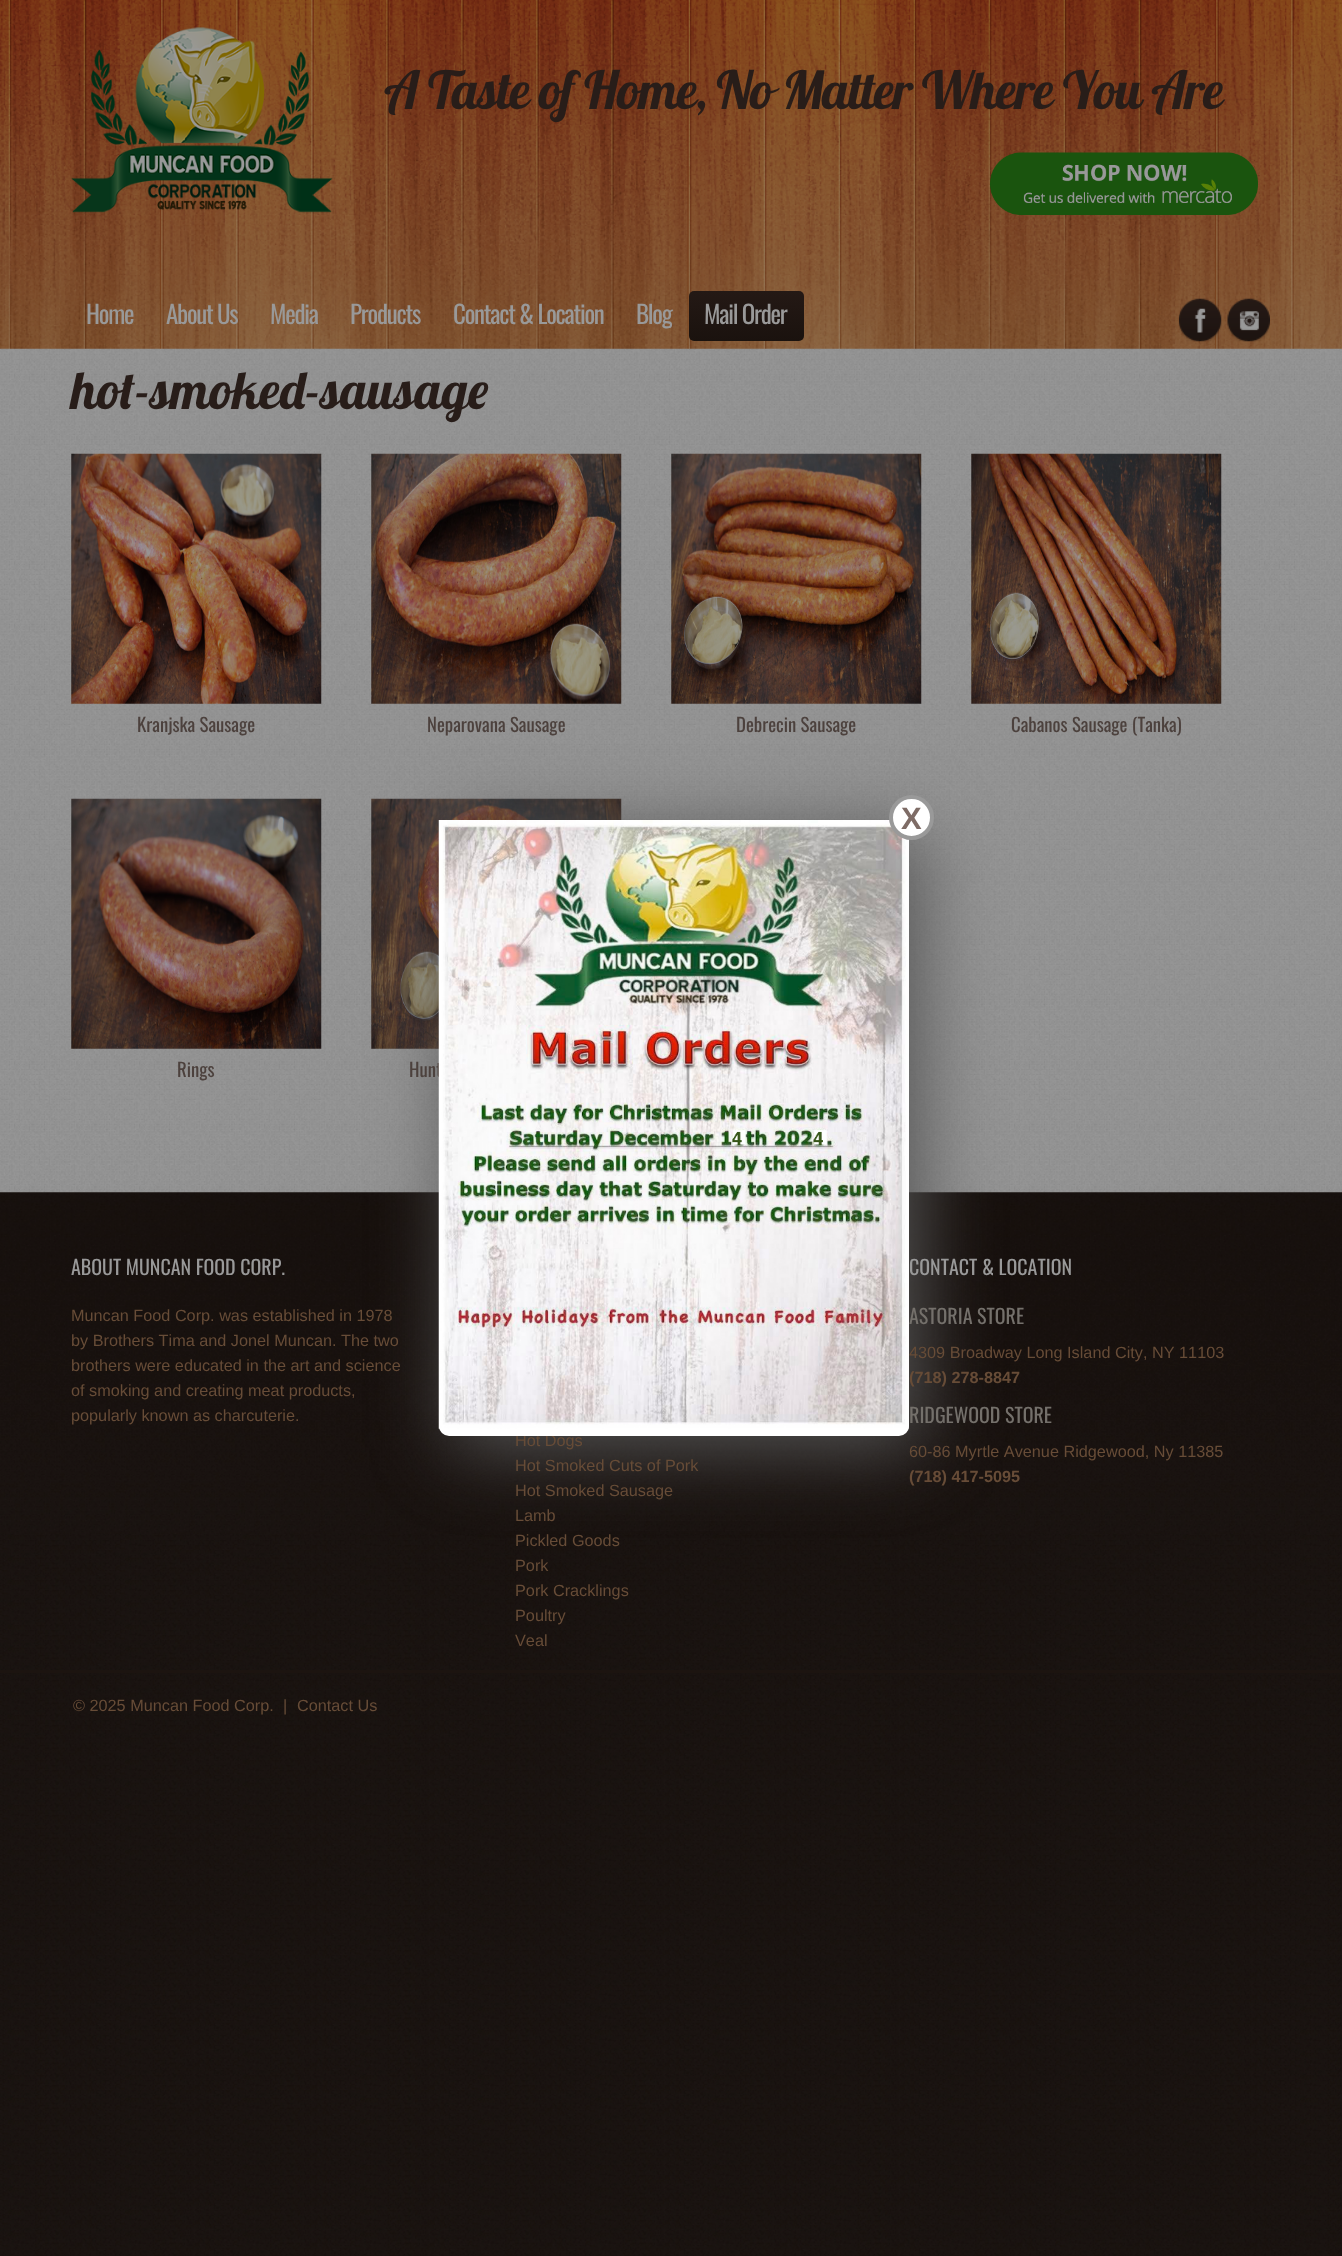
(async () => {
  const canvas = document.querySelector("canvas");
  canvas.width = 1342;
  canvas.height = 2256;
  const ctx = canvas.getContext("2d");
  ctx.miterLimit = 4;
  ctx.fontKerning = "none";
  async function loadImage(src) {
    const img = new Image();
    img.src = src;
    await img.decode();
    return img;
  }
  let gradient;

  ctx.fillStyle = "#ffffff";
  ctx.fillRect(0, 0, 1342, 2256);
  ctx.drawImage(await loadImage("img/1.png"), 0, 1192, 1342, 1064);
  ctx.drawImage(await loadImage("img/2.png"), 0, 348, 1342, 845);
  ctx.drawImage(await loadImage("img/3.png"), 0, 0, 1342, 349);
  ctx.drawImage(await loadImage("img/4.png"), 71, 27, 262, 186);
  ctx.drawImage(await loadImage("img/5.png"), 990, 152, 268, 63);
  gradient = ctx.createLinearGradient(746, 291, 746, 341);
  gradient.addColorStop(0, "#241915");
  gradient.addColorStop(1, "#1a120e");
  ctx.fillStyle = gradient;
  ctx.beginPath();
  ctx.roundRect(689, 291, 115, 50, 5);
  ctx.fill();
  ctx.drawImage(await loadImage("img/6.png"), 1178, 298, 44, 44);
  ctx.drawImage(await loadImage("img/7.png"), 1227, 298, 43, 44);
  ctx.drawImage(await loadImage("img/8.png"), 71, 453, 251, 251);
  ctx.drawImage(await loadImage("img/9.png"), 371, 453, 251, 251);
  ctx.drawImage(await loadImage("img/10.png"), 671, 453, 251, 251);
  ctx.drawImage(await loadImage("img/11.png"), 971, 453, 251, 251);
  ctx.drawImage(await loadImage("img/12.png"), 71, 798, 251, 251);
  ctx.drawImage(await loadImage("img/13.png"), 371, 798, 251, 251);
  ctx.drawImage(await loadImage("img/15.png"), 0, 1192, 1342, 342);
  ctx.fillStyle = "#555555";
  ctx.filter = "blur(37.5px)";
  ctx.beginPath();
  ctx.roundRect(451, 833, 470, 616, 10);
  ctx.fill();
  ctx.filter = "none";
  ctx.fillStyle = "#1c1410";
  ctx.fillRect(0, 1670, 1342, 3);
  ctx.letterSpacing = "-1.25px";
  ctx.font = "52.5px Lobster";
  ctx.fillStyle = "#281d19";
  ctx.fillText("A Taste of Home, No Matter Where You Are", 384, 109);
  ctx.font = "25px Oswald";
  ctx.fillStyle = "#999999";
  for (const [text, x, y] of [
    ["Home", 86, 324],
    ["About Us", 166, 324],
    ["Media", 270, 324],
    ["Products", 350, 324],
    ["Contact & Location", 453, 324],
    ["Blog", 636, 324],
    ["Mail Order", 704, 324],
  ]) {
    ctx.fillText(text, x, y);
  }
  ctx.letterSpacing = "0px";
  ctx.font = "52.5px Lobster";
  ctx.fillStyle = "#281d19";
  ctx.fillText("hot-smoked-sausage", 71, 409);
  ctx.font = "18.75px Oswald";
  ctx.fillStyle = "#4c413d";
  for (const [text, x, y] of [
    ["Kranjska Sausage", 137, 732],
    ["Neparovana Sausage", 427, 732],
    ["Debrecin Sausage", 736, 732],
    ["Cabanos Sausage (Tanka)", 1011, 732],
    ["Rings", 177, 1077],
    ["Hunt", 409, 1077],
  ]) {
    ctx.fillText(text, x, y);
  }
  ctx.font = "20px Oswald";
  ctx.fillStyle = "#999999";
  ctx.fillText("ABOUT MUNCAN FOOD CORP.", 71, 1275);
  ctx.font = "16.25px Liberation Sans";
  ctx.fillStyle = "#674c37";
  for (const [text, x, y] of [
    ["Muncan Food Corp. was established in 1978", 71, 1321],
    ["by Brothers Tima and Jonel Muncan. The two", 71, 1346],
    ["brothers were educated in the art and science", 71, 1371],
    ["of smoking and creating meat products,", 71, 1396],
    ["popularly known as charcuterie.", 71, 1421],
  ]) {
    ctx.fillText(text, x, y);
  }
  ctx.font = "20px Oswald";
  ctx.fillStyle = "#999999";
  ctx.fillText("CONTACT & LOCATION", 909, 1275);
  ctx.fillStyle = "#74706b";
  ctx.fillText("ASTORIA STORE", 909, 1324);
  ctx.font = "16.25px Liberation Sans";
  ctx.fillStyle = "#674c37";
  ctx.fillText("4309 Broadway Long Island City, NY 11103", 909, 1358);
  ctx.font = "bold 16.25px Liberation Sans";
  ctx.fillText("(718) 278-8847", 909, 1383);
  ctx.font = "20px Oswald";
  ctx.fillStyle = "#74706b";
  ctx.fillText("RIDGEWOOD STORE", 909, 1423);
  ctx.font = "16.25px Liberation Sans";
  ctx.fillStyle = "#674c37";
  ctx.fillText("60-86 Myrtle Avenue Ridgewood, Ny 11385", 909, 1457);
  ctx.font = "bold 16.25px Liberation Sans";
  ctx.fillText("(718) 417-5095", 909, 1482);
  ctx.font = "16.25px Liberation Sans";
  ctx.fillText("Hot Dogs", 515, 1446);
  ctx.fillStyle = "#ffffff";
  ctx.beginPath();
  ctx.roundRect(439, 820, 470, 616, 10);
  ctx.fill();
  ctx.drawImage(await loadImage("img/14.png"), 438, 820, 471, 609);
  ctx.beginPath();
  ctx.arc(911.5, 817.5, 20.5, 0, Math.PI * 2);
  ctx.fill();
  ctx.strokeStyle = "#999999";
  ctx.lineWidth = 4;
  ctx.stroke();
  ctx.font = "bold 31px Liberation Sans";
  ctx.fillStyle = "#7e6c66";
  ctx.fillText("X", 901, 829);
  ctx.font = "16.25px Liberation Sans";
  ctx.fillStyle = "#674c37";
  for (const [text, x, y] of [
    ["Hot Smoked Cuts of Pork", 515, 1471],
    ["Hot Smoked Sausage", 515, 1496],
    ["Lamb", 515, 1521],
    ["Pickled Goods", 515, 1546],
    ["Pork", 515, 1571],
    ["Pork Cracklings", 515, 1596],
    ["Poultry", 515, 1621],
    ["Veal", 515, 1646],
    ["© 2025 Muncan Food Corp.", 73, 1711],
    ["|", 283, 1711],
    ["Contact Us", 297, 1711],
  ]) {
    ctx.fillText(text, x, y);
  }
})();
